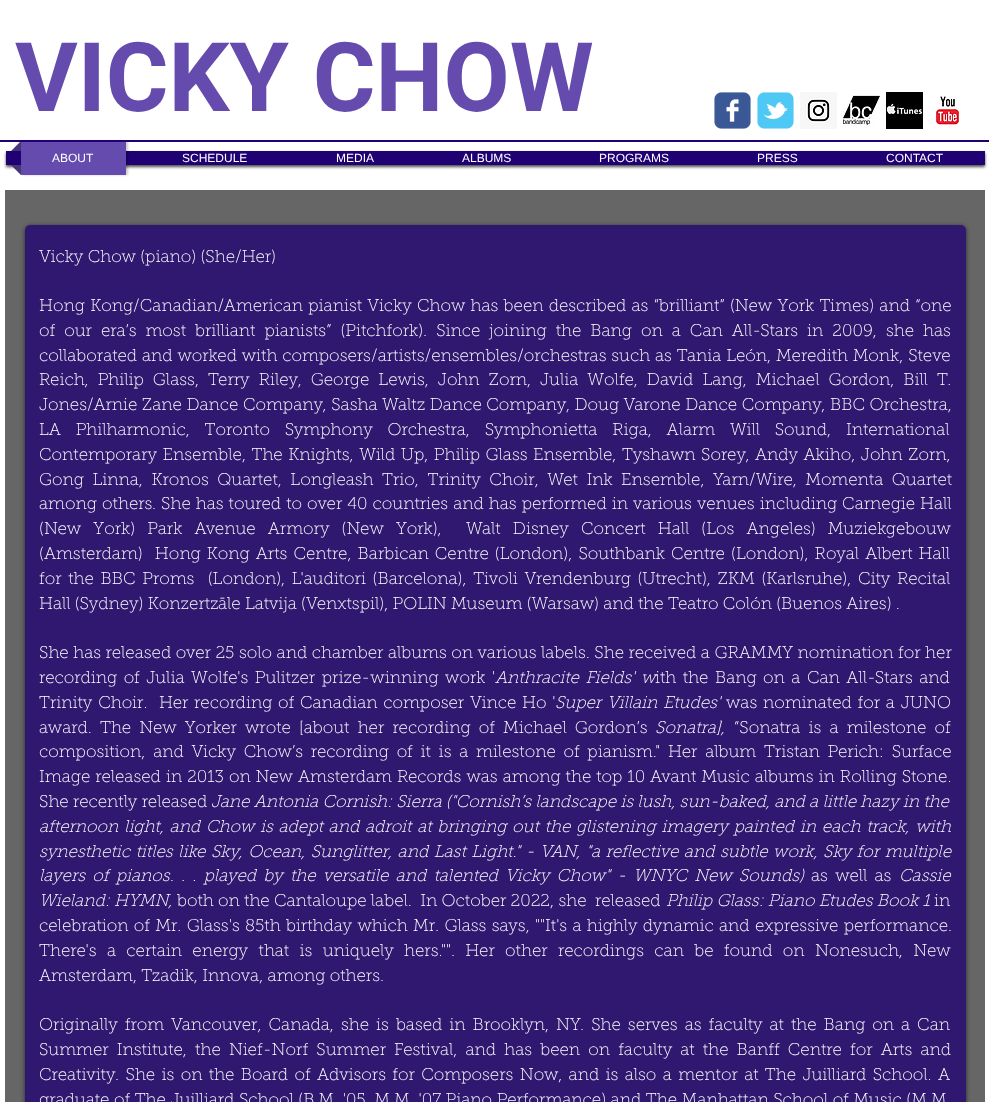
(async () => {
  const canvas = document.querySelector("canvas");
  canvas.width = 989;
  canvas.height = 1102;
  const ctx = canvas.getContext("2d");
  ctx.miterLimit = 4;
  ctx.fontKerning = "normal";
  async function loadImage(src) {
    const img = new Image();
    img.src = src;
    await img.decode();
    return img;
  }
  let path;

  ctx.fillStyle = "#ffffff";
  ctx.fillRect(0, 0, 989, 1102);
  ctx.drawImage(await loadImage("img/1.png"), 714, 92, 37, 37);
  ctx.drawImage(await loadImage("img/2.png"), 757, 92, 37, 37);
  ctx.drawImage(await loadImage("img/3.png"), 800, 92, 37, 37);
  ctx.drawImage(await loadImage("img/4.png"), 843, 95, 37, 33);
  ctx.drawImage(await loadImage("img/5.png"), 886, 92, 37, 37);
  ctx.drawImage(await loadImage("img/6.png"), 936, 96, 23, 29);
  ctx.fillStyle = "rgba(0, 0, 0, 0.7)";
  ctx.filter = "blur(1.5px)";
  ctx.beginPath();
  ctx.rect(6, 153, 979, 14);
  ctx.fill();
  ctx.filter = "none";
  ctx.fillStyle = "#200174";
  ctx.fillRect(6, 151, 979, 14);
  ctx.fillStyle = "rgba(0, 0, 0, 0.2)";
  ctx.filter = "blur(1px)";
  ctx.beginPath();
  ctx.rect(23, 141, 105, 34);
  ctx.fill();
  ctx.filter = "none";
  ctx.fillStyle = "#473579";
  path = new Path2D("M21 151H11L21 141ZM11 165H21V175Z");
  ctx.fill(path);
  for (const [x, y, w, h, color] of [
    [0, 140, 989, 2, "#200174"],
    [21, 142, 105, 33, "#654bad"],
    [5, 190, 980, 912, "#666666"],
  ]) {
    ctx.fillStyle = color;
    ctx.fillRect(x, y, w, h);
  }
  ctx.save();
  path = new Path2D("M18 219H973V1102H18ZM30 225H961C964 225 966 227 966 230V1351C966 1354 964 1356 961 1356H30C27 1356 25 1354 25 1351V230C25 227 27 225 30 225Z");
  ctx.clip(path, "evenodd");
  ctx.fillStyle = "rgba(0, 0, 0, 0.6)";
  ctx.filter = "blur(2px)";
  ctx.beginPath();
  ctx.roundRect(25, 226, 941, 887, 5);
  ctx.fill();
  ctx.filter = "none";
  ctx.restore();
  ctx.fillStyle = "rgba(32, 1, 116, 0.77)";
  ctx.beginPath();
  ctx.roundRect(25, 225, 941, 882, 5);
  ctx.fill();
  ctx.font = "bold 96px Roboto";
  ctx.fillStyle = "#654bad";
  ctx.fillText("VICKY CHOW", 15, 111);
  ctx.font = "12px Liberation Sans";
  ctx.fillStyle = "#ffffff";
  for (const [text, x, y] of [
    ["ABOUT", 52, 162],
    ["SCHEDULE", 182, 162],
    ["MEDIA", 336, 162],
    ["ALBUMS", 462, 162],
    ["PROGRAMS", 599, 162],
    ["PRESS", 757, 162],
    ["CONTACT", 886, 162],
  ]) {
    ctx.fillText(text, x, y);
  }
  ctx.font = "100 17px 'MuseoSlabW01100'";
  ctx.fillText("Vicky Chow (piano) (She/Her)", 39, 262);
  ctx.wordSpacing = "1px";
  ctx.fillText("Hong Kong/Canadian/American pianist Vicky Chow has been described as “brilliant” (New York Times) and “one", 39, 311);
  ctx.wordSpacing = "4.75px";
  ctx.fillText("of our era’s most brilliant pianists” (Pitchfork). Since joining the Bang on a Can All-Stars in 2009, she has", 39, 336);
  ctx.wordSpacing = "0.6px";
  ctx.fillText("collaborated and worked with composers/artists/ensembles/orchestras such as Tania León, Meredith Monk, Steve", 39, 361);
  ctx.wordSpacing = "4.75px";
  ctx.fillText("Reich, Philip Glass, Terry Riley, George Lewis, John Zorn, Julia Wolfe, David Lang, Michael Gordon, Bill T.", 39, 385);
  ctx.wordSpacing = "0.25px";
  ctx.fillText("Jones/Arnie Zane Dance Company, Sasha Waltz Dance Company, Doug Varone Dance Company, BBC Orchestra,", 39, 410);
  ctx.wordSpacing = "10.5px";
  ctx.fillText("LA Philharmonic, Toronto Symphony Orchestra, Symphonietta Riga, Alarm Will Sound, International", 39, 435);
  ctx.wordSpacing = "1.25px";
  ctx.fillText("Contemporary Ensemble, The Knights, Wild Up, Philip Glass Ensemble, Tyshawn Sorey,", 39, 460);
  ctx.fillText("Andy Akiho, John Zorn,", 755, 460);
  ctx.wordSpacing = "4.25px";
  ctx.fillText("Gong Linna, Kronos Quartet, Longleash Trio, Trinity Choir, Wet Ink Ensemble, Yarn/Wire, Momenta Quartet", 39, 485);
  ctx.wordSpacing = "1px";
  ctx.fillText("among others", 39, 509);
  ctx.wordSpacing = "0.75px";
  ctx.fillText(". She has toured to over 40 countries and has performed in various venues including Carnegie Hall", 152, 509);
  ctx.wordSpacing = "7.9px";
  ctx.fillText("(New York) Park Avenue Armory (New York),  Walt Disney Concert Hall (Los Angeles) Muziekgebouw", 39, 534);
  ctx.wordSpacing = "1.8px";
  ctx.fillText("(Amsterdam)  Hong Kong Arts Centre, Barbican Centre (London), Southbank Centre (London), Royal Albert Hall", 39, 559);
  ctx.wordSpacing = "2.4px";
  ctx.fillText("for the BBC Proms  (London), L'auditori (Barcelona), Tivoli Vrendenburg (Utrecht), ZKM (Karlsruhe), City Recital", 39, 584);
  ctx.wordSpacing = "0px";
  ctx.fillText("Hall (Sydney) Konzertz", 39, 609);
  ctx.font = "100 17px 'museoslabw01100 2'";
  ctx.fillText("ā", 218, 609);
  ctx.font = "100 17px 'MuseoSlabW01100'";
  ctx.fillText("le Latvija (Venxtspil), POLIN Museum (Warsaw) and the Teatro Colón (Buenos Aires) .", 227, 609);
  ctx.wordSpacing = "0.25px";
  ctx.fillText("She has released over 25 solo and chamber albums on various labels. She received a GRAMMY nomination for her", 39, 658);
  ctx.wordSpacing = "2.25px";
  ctx.fillText("recording of Julia Wolfe's Pulitzer prize-winning work '", 39, 683);
  ctx.font = "italic 100 17px 'MuseoSlabW01100'";
  ctx.fillText("Anthracite Fields' w", 495, 683);
  ctx.font = "100 17px 'MuseoSlabW01100'";
  ctx.fillText("ith the Bang on a Can All-Stars and", 655, 683);
  ctx.wordSpacing = "1.5px";
  ctx.fillText("Trinity Choir.  Her recording of Canadian composer Vince Ho '", 39, 708);
  ctx.font = "italic 100 17px 'MuseoSlabW01100'";
  ctx.fillText("Super Villain Etudes'", 555, 708);
  ctx.font = "100 17px 'MuseoSlabW01100'";
  ctx.fillText("was nominated for a JUNO", 726, 708);
  ctx.wordSpacing = "3.9px";
  ctx.fillText("award. The New Yorker wrote [about her recording of Michael Gordon’s", 39, 733);
  ctx.wordSpacing = "0px";
  ctx.font = "italic 100 17px 'MuseoSlabW01100'";
  ctx.fillText("Sonatra],", 655, 733);
  ctx.wordSpacing = "3.9px";
  ctx.font = "100 17px 'MuseoSlabW01100'";
  ctx.fillText("“Sonatra is a milestone of", 734, 733);
  ctx.wordSpacing = "3.5px";
  ctx.fillText("composition, and Vicky Chow’s recording of it is a milestone of pianism.\" Her album Tristan Perich: Surface", 39, 757);
  ctx.wordSpacing = "0.75px";
  ctx.fillText("Image released in 2013 on New Amsterdam Records was among the top 10 Avant Music albums in Rolling Stone.", 39, 782);
  ctx.wordSpacing = "0px";
  ctx.fillText("She recently released", 39, 807);
  ctx.font = "italic 100 17px 'MuseoSlabW01100'";
  ctx.fillText("Jane Antonia Cornish: Sierra (\"Cornish’s landscape is lush, sun-baked, and a little hazy in the", 211, 807);
  ctx.wordSpacing = "1.5px";
  ctx.fillText("afternoon light, and Chow is adept and adroit at bringing out the glistening imagery painted in each track, with", 39, 832);
  ctx.wordSpacing = "1.25px";
  ctx.fillText("synesthetic titles like Sky, Ocean, Sunglitter, and Last Light.\" - VAN, \"a reflective and subtle work, Sky for multiple", 39, 857);
  ctx.wordSpacing = "3px";
  ctx.fillText("layers of pianos. . . played by the versatile and talented Vicky Chow\" - WNYC New Sounds)", 39, 881);
  ctx.font = "100 17px 'MuseoSlabW01100'";
  ctx.fillText("as well as", 811, 881);
  ctx.wordSpacing = "0px";
  ctx.font = "italic 100 17px 'MuseoSlabW01100'";
  ctx.fillText("Cassie", 899, 881);
  ctx.fillText("Wieland: HYMN,", 39, 906);
  ctx.font = "100 17px 'MuseoSlabW01100'";
  ctx.fillText("both on the Cantaloupe label.  In October 2022, she  released", 177, 906);
  ctx.font = "italic 100 17px 'MuseoSlabW01100'";
  ctx.fillText("Philip Glass: Piano Etudes Book 1", 666, 906);
  ctx.font = "100 17px 'MuseoSlabW01100'";
  ctx.fillText("in", 934, 906);
  ctx.wordSpacing = "1px";
  ctx.fillText("celebration of Mr. Glass's 85th birthday which Mr. Glass says, \"\"It's a highly dynamic and expressive performance.", 39, 931);
  ctx.wordSpacing = "6.1px";
  ctx.fillText("There's a certain energy that is uniquely hers.\"\". Her other recordings can be found on Nonesuch, New", 39, 956);
  ctx.wordSpacing = "0px";
  ctx.fillText("Amsterdam, Tzadik, Innova, among others.", 39, 981);
  ctx.wordSpacing = "2.75px";
  ctx.fillText("Originally from Vancouver, Canada, she is based in Brooklyn, NY. She serves as faculty at the Bang on a Can", 39, 1030);
  ctx.wordSpacing = "3.9px";
  ctx.fillText("Summer Institute, the Nief-Norf Summer Festival, and has been on faculty at the Banff Centre for Arts and", 39, 1055);
  ctx.wordSpacing = "2.1px";
  ctx.fillText("Creativity. She is on the Board of Advisors for Composers Now, and is also a mentor at The Juilliard School. A", 39, 1080);
  ctx.wordSpacing = "0.3px";
  ctx.fillText("graduate of The Juilliard School (B.M. '05, M.M. '07 Piano Performance) and The Manhattan School of Music (M.M", 39, 1105);
})();
